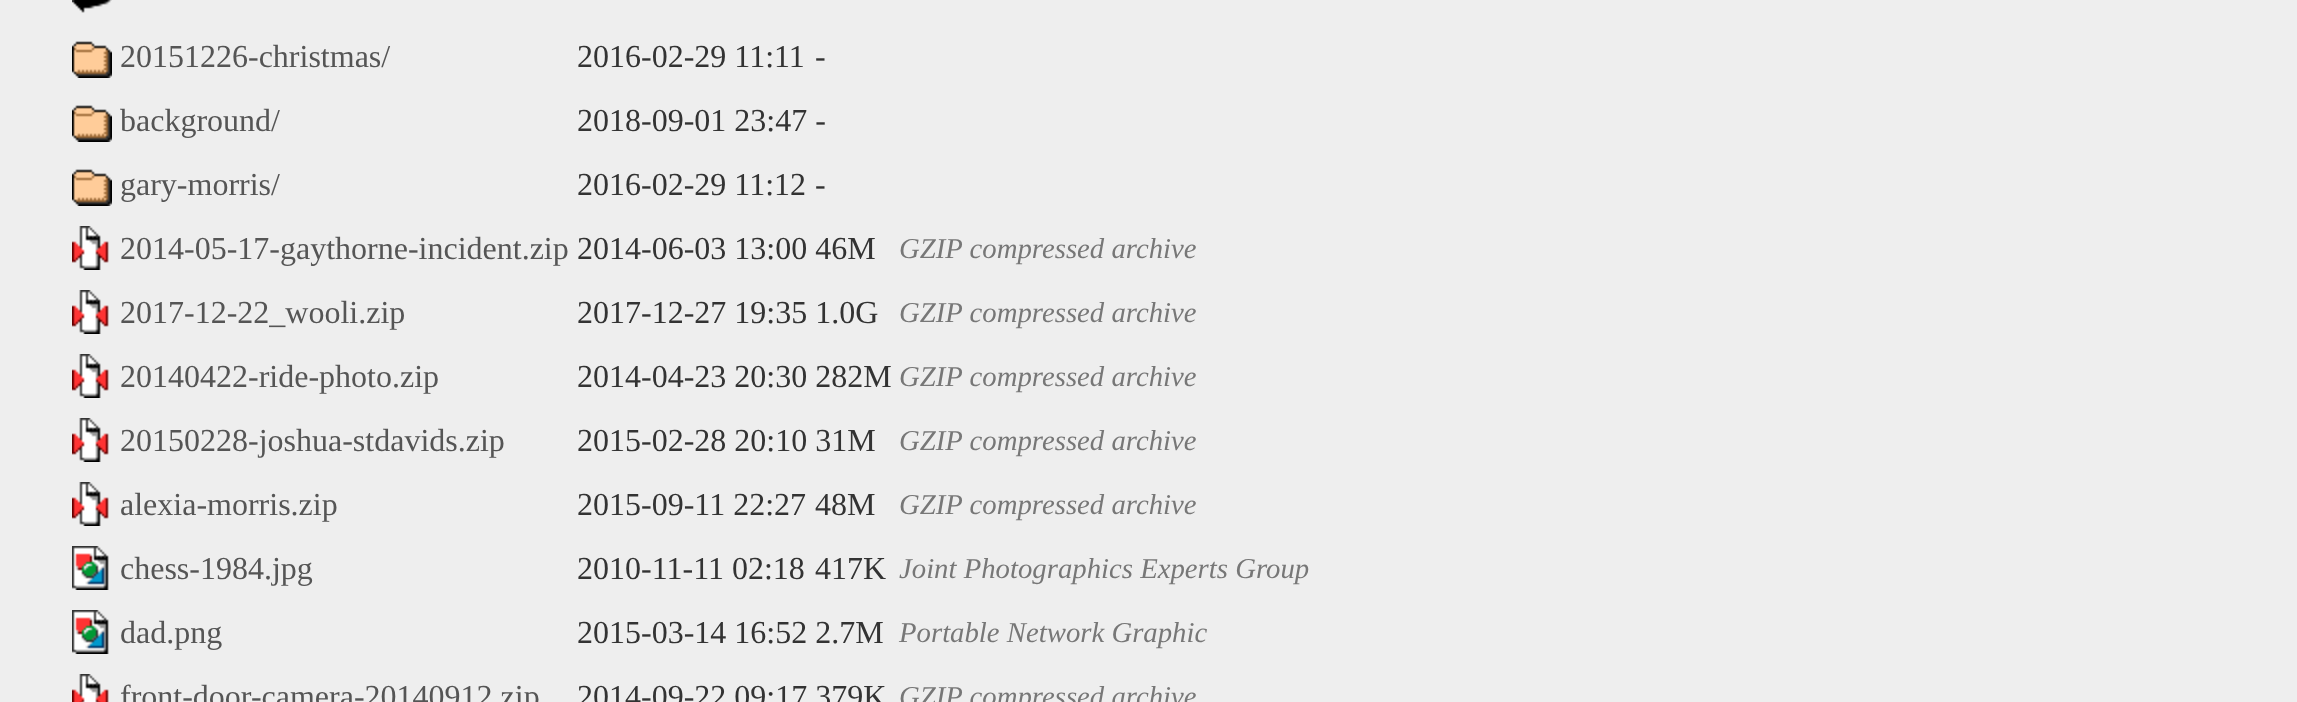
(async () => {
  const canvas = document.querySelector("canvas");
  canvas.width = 2297;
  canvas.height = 702;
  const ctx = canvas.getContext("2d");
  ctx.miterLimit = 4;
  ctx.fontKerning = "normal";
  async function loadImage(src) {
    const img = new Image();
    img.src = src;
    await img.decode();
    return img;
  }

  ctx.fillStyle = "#eeeeee";
  ctx.fillRect(0, 0, 2297, 702);
  ctx.drawImage(await loadImage("img/1.png"), 72, 0, 40, 13);
  ctx.drawImage(await loadImage("img/2.png"), 72, 41, 40, 37);
  ctx.drawImage(await loadImage("img/2.png"), 72, 105, 40, 37);
  ctx.drawImage(await loadImage("img/2.png"), 72, 169, 40, 37);
  ctx.drawImage(await loadImage("img/3.png"), 72, 226, 37, 44);
  ctx.drawImage(await loadImage("img/3.png"), 72, 290, 37, 44);
  ctx.drawImage(await loadImage("img/3.png"), 72, 354, 37, 44);
  ctx.drawImage(await loadImage("img/3.png"), 72, 418, 37, 44);
  ctx.drawImage(await loadImage("img/3.png"), 72, 482, 37, 44);
  ctx.drawImage(await loadImage("img/4.png"), 72, 546, 37, 44);
  ctx.drawImage(await loadImage("img/4.png"), 72, 610, 37, 44);
  ctx.drawImage(await loadImage("img/5.png"), 72, 674, 37, 28);
  ctx.font = "32px Liberation Serif";
  ctx.fillStyle = "#555555";
  ctx.fillText("20151226-christmas/", 120, 67);
  ctx.fillStyle = "#333333";
  ctx.fillText("2016-02-29 11:11", 577, 67);
  ctx.fillText("-", 815, 67);
  ctx.fillStyle = "#555555";
  ctx.fillText("background/", 120, 131);
  ctx.fillStyle = "#333333";
  ctx.fillText("2018-09-01 23:47 -", 577, 131);
  ctx.fillStyle = "#555555";
  ctx.fillText("gary-morris/", 120, 195);
  ctx.fillStyle = "#333333";
  ctx.fillText("2016-02-29 11:12", 577, 195);
  ctx.fillText("-", 815, 195);
  ctx.fillStyle = "#555555";
  ctx.fillText("2014-05-17-gaythorne-incident.zip", 120, 259);
  ctx.fillStyle = "#333333";
  ctx.fillText("2014-06-03 13:00 46M", 577, 259);
  ctx.font = "italic 28.75px Liberation Serif";
  ctx.fillStyle = "#777777";
  ctx.fillText("GZIP compressed archive", 899, 258);
  ctx.font = "32px Liberation Serif";
  ctx.fillStyle = "#555555";
  ctx.fillText("2017-12-22_wooli.zip", 120, 323);
  ctx.fillStyle = "#333333";
  ctx.fillText("2017-12-27 19:35 1.0G", 577, 323);
  ctx.font = "italic 28.75px Liberation Serif";
  ctx.fillStyle = "#777777";
  ctx.fillText("GZIP compressed archive", 899, 322);
  ctx.font = "32px Liberation Serif";
  ctx.fillStyle = "#555555";
  ctx.fillText("20140422-ride-photo.zip", 120, 387);
  ctx.fillStyle = "#333333";
  ctx.fillText("2014-04-23 20:30 282M", 577, 387);
  ctx.font = "italic 28.75px Liberation Serif";
  ctx.fillStyle = "#777777";
  ctx.fillText("GZIP compressed archive", 899, 386);
  ctx.font = "32px Liberation Serif";
  ctx.fillStyle = "#555555";
  ctx.fillText("20150228-joshua-stdavids.zip", 120, 451);
  ctx.fillStyle = "#333333";
  ctx.fillText("2015-02-28 20:10 31M", 577, 451);
  ctx.font = "italic 28.75px Liberation Serif";
  ctx.fillStyle = "#777777";
  ctx.fillText("GZIP compressed archive", 899, 450);
  ctx.font = "32px Liberation Serif";
  ctx.fillStyle = "#555555";
  ctx.fillText("alexia-morris.zip", 120, 515);
  ctx.fillStyle = "#333333";
  ctx.fillText("2015-09-11 22:27", 577, 515);
  ctx.fillText("48M", 815, 515);
  ctx.font = "italic 28.75px Liberation Serif";
  ctx.fillStyle = "#777777";
  ctx.fillText("GZIP compressed archive", 899, 514);
  ctx.font = "32px Liberation Serif";
  ctx.fillStyle = "#555555";
  ctx.fillText("chess-1984.jpg", 120, 579);
  ctx.fillStyle = "#333333";
  ctx.fillText("2010-11-11 02:18", 577, 579);
  ctx.fillText("417K", 815, 579);
  ctx.font = "italic 28.75px Liberation Serif";
  ctx.fillStyle = "#777777";
  ctx.fillText("Joint Photographics Experts Group", 899, 578);
  ctx.font = "32px Liberation Serif";
  ctx.fillStyle = "#555555";
  ctx.fillText("dad.png", 120, 643);
  ctx.fillStyle = "#333333";
  ctx.fillText("2015-03-14 16:52 2.7M", 577, 643);
  ctx.font = "italic 28.75px Liberation Serif";
  ctx.fillStyle = "#777777";
  ctx.fillText("Portable Network Graphic", 899, 642);
  ctx.font = "32px Liberation Serif";
  ctx.fillStyle = "#555555";
  ctx.fillText("front-door-camera-20140912.zip", 120, 707);
  ctx.fillStyle = "#333333";
  ctx.fillText("2014-09-22 09:17 379K", 577, 707);
  ctx.font = "italic 28.75px Liberation Serif";
  ctx.fillStyle = "#777777";
  ctx.fillText("GZIP compressed archive", 899, 706);
})();
